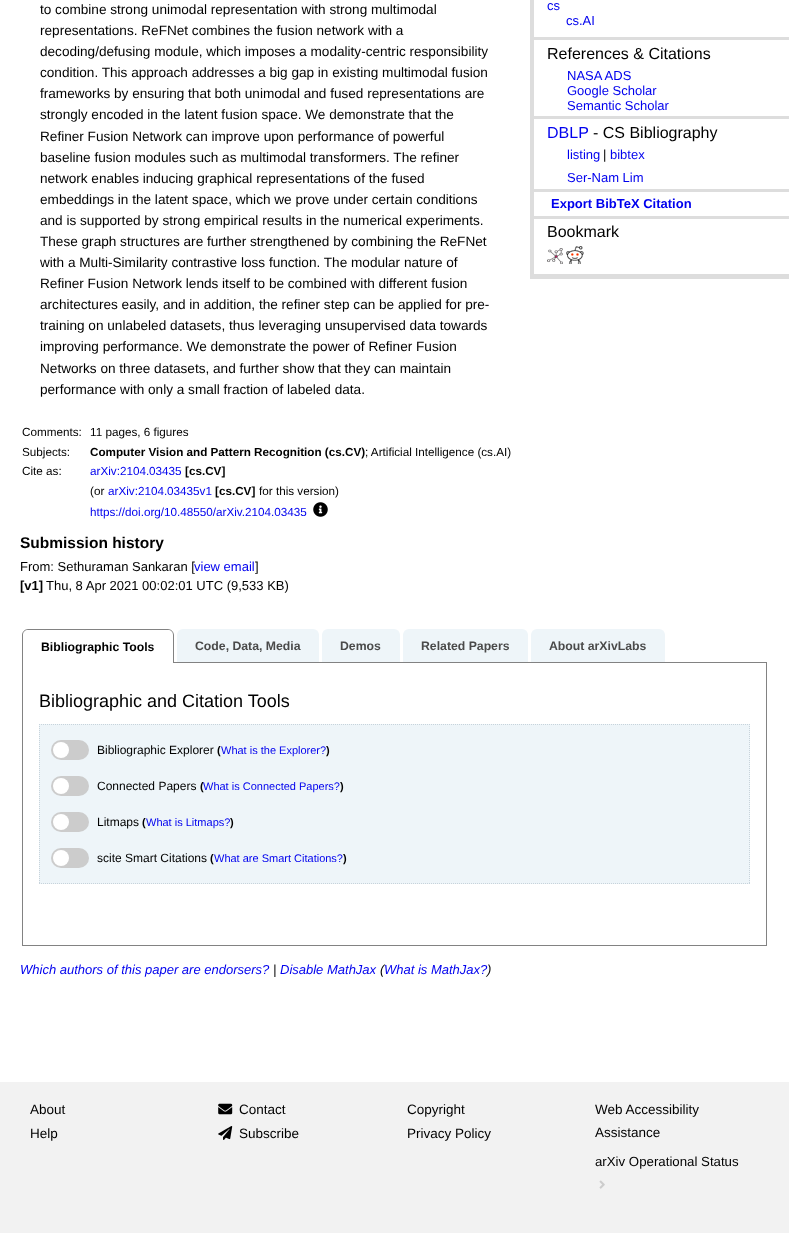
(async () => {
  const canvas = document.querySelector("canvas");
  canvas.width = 789;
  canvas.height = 1233;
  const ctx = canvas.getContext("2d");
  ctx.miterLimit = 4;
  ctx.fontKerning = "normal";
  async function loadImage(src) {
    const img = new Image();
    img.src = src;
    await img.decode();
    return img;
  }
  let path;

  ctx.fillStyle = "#ffffff";
  ctx.fillRect(0, 0, 789, 1233);
  ctx.drawImage(await loadImage("img/1.png"), 313, 502, 15, 15);
  for (const [x, y, w, h, color] of [
    [530, 274, 259, 5, "#dddddd"],
    [530, 37, 259, 3, "#dddddd"],
    [530, 0, 4, 40, "#dddddd"],
    [530, 116, 259, 3, "#dddddd"],
    [530, 40, 4, 79, "#dddddd"],
    [530, 189, 259, 3, "#dddddd"],
    [530, 119, 4, 73, "#dddddd"],
    [530, 216, 259, 3, "#dddddd"],
    [530, 192, 4, 82, "#dddddd"],
  ]) {
    ctx.fillStyle = color;
    ctx.fillRect(x, y, w, h);
  }
  ctx.drawImage(await loadImage("img/2.png"), 547, 248, 16, 16);
  ctx.drawImage(await loadImage("img/3.png"), 566, 246, 18, 18);
  ctx.fillStyle = "#eef5f9";
  ctx.beginPath();
  ctx.roundRect(177, 629, 142, 34, [6, 6, 0, 0]);
  ctx.fill();
  ctx.beginPath();
  ctx.roundRect(322, 629, 78, 34, [6, 6, 0, 0]);
  ctx.fill();
  ctx.beginPath();
  ctx.roundRect(403, 629, 125, 34, [6, 6, 0, 0]);
  ctx.fill();
  ctx.beginPath();
  ctx.roundRect(531, 629, 134, 34, [6, 6, 0, 0]);
  ctx.fill();
  ctx.strokeStyle = "#828282";
  ctx.strokeRect(22.5, 662.5, 744, 283);
  ctx.fillStyle = "#ffffff";
  ctx.beginPath();
  ctx.roundRect(22, 629, 152, 34, [6, 6, 0, 0]);
  ctx.fill();
  ctx.fillStyle = "#828282";
  path = new Path2D("M28 629H168C171 629 174 632 174 635V663H22V635C22 632 25 629 28 629ZM28 630H168C171 630 173 632 173 635V663H23V635C23 632 25 630 28 630Z");
  ctx.fill(path, "evenodd");
  ctx.fillStyle = "#eef5f9";
  ctx.fillRect(39, 724, 711, 160);
  path = new Path2D("M39 724.5H750");
  ctx.strokeStyle = "#c7d3db";
  ctx.setLineDash([1, 1]);
  ctx.stroke(path);
  path = new Path2D("M749.5 724V884");
  ctx.stroke(path);
  path = new Path2D("M39 883.5H750");
  ctx.stroke(path);
  path = new Path2D("M39.5 724V884");
  ctx.stroke(path);
  ctx.fillStyle = "#cccccc";
  ctx.beginPath();
  ctx.roundRect(51, 740, 38, 20, 10);
  ctx.fill();
  ctx.fillStyle = "#ffffff";
  ctx.beginPath();
  ctx.arc(61, 750, 8, 0, Math.PI * 2);
  ctx.fill();
  ctx.fillStyle = "#cccccc";
  ctx.beginPath();
  ctx.roundRect(51, 776, 38, 20, 10);
  ctx.fill();
  ctx.fillStyle = "#ffffff";
  ctx.beginPath();
  ctx.arc(61, 786, 8, 0, Math.PI * 2);
  ctx.fill();
  ctx.fillStyle = "#cccccc";
  ctx.beginPath();
  ctx.roundRect(51, 812, 38, 20, 10);
  ctx.fill();
  ctx.fillStyle = "#ffffff";
  ctx.beginPath();
  ctx.arc(61, 822, 8, 0, Math.PI * 2);
  ctx.fill();
  ctx.fillStyle = "#cccccc";
  ctx.beginPath();
  ctx.roundRect(51, 848, 38, 20, 10);
  ctx.fill();
  ctx.fillStyle = "#ffffff";
  ctx.beginPath();
  ctx.arc(61, 858, 8, 0, Math.PI * 2);
  ctx.fill();
  ctx.fillStyle = "#f2f2f2";
  ctx.fillRect(0, 1082, 789, 151);
  ctx.drawImage(await loadImage("img/4.png"), 218, 1103, 15, 12);
  ctx.drawImage(await loadImage("img/5.png"), 218, 1126, 15, 14);
  ctx.drawImage(await loadImage("img/6.png"), 599, 1180, 6, 9);
  ctx.font = "13.6px Liberation Sans";
  ctx.fillStyle = "#000000";
  for (const [text, x, y] of [
    ["to combine strong unimodal representation with strong multimodal", 40, 14],
    ["representations. ReFNet combines the fusion network with a", 40, 35],
    ["decoding/defusing module, which imposes a modality-centric responsibility", 40, 56],
    ["condition. This approach addresses a big gap in existing multimodal fusion", 40, 77],
    ["frameworks by ensuring that both unimodal and fused representations are", 40, 98],
    ["strongly encoded in the latent fusion space. We demonstrate that the", 40, 119],
    ["Refiner Fusion Network can improve upon performance of powerful", 40, 141],
    ["baseline fusion modules such as multimodal transformers. The refiner", 40, 162],
    ["network enables inducing graphical representations of the fused", 40, 183],
    ["embeddings in the latent space, which we prove under certain conditions", 40, 204],
    ["and is supported by strong empirical results in the numerical experiments.", 40, 225],
    ["These graph structures are further strengthened by combining the ReFNet", 40, 246],
    ["with a Multi-Similarity contrastive loss function. The modular nature of", 40, 267],
    ["Refiner Fusion Network lends itself to be combined with different fusion", 40, 288],
    ["architectures easily, and in addition, the refiner step can be applied for pre-", 40, 309],
    ["training on unlabeled datasets, thus leveraging unsupervised data towards", 40, 330],
    ["improving performance. We demonstrate the power of Refiner Fusion", 40, 351],
    ["Networks on three datasets, and further show that they can maintain", 40, 373],
    ["performance with only a small fraction of labeled data.", 40, 394],
  ]) {
    ctx.fillText(text, x, y);
  }
  ctx.font = "11.7px Liberation Sans";
  for (const [text, x, y] of [
    ["Comments:", 22, 436],
    ["11 pages, 6 figures", 90, 436],
    ["Subjects:", 22, 456],
  ]) {
    ctx.fillText(text, x, y);
  }
  ctx.font = "bold 11.7px Liberation Sans";
  ctx.fillText("Computer Vision and Pattern Recognition (cs.CV)", 90, 456);
  ctx.font = "11.7px Liberation Sans";
  ctx.fillText("; Artificial Intelligence (cs.AI)", 365, 456);
  ctx.fillText("Cite as:", 22, 475);
  ctx.fillStyle = "#0000ee";
  ctx.fillText("arXiv:2104.03435", 90, 475);
  ctx.font = "bold 11.7px Liberation Sans";
  ctx.fillStyle = "#000000";
  ctx.fillText("[cs.CV]", 185, 475);
  ctx.font = "11.7px Liberation Sans";
  ctx.fillText("(or", 90, 495);
  ctx.fillStyle = "#0000ee";
  ctx.fillText("arXiv:2104.03435v1", 108, 495);
  ctx.font = "bold 11.7px Liberation Sans";
  ctx.fillStyle = "#000000";
  ctx.fillText("[cs.CV]", 215, 495);
  ctx.font = "11.7px Liberation Sans";
  ctx.fillText("for this version)", 259, 495);
  ctx.fillStyle = "#0000ee";
  ctx.fillText("https://doi.org/10.48550/arXiv.2104.03435", 90, 516);
  ctx.font = "bold 15.5px Liberation Sans";
  ctx.fillStyle = "#000000";
  ctx.fillText("Submission history", 20, 548);
  ctx.font = "13px Liberation Sans";
  ctx.fillText("From: Sethuraman Sankaran [", 20, 571);
  ctx.fillStyle = "#0000ee";
  ctx.fillText("view email", 194, 571);
  ctx.fillStyle = "#000000";
  ctx.fillText("]", 255, 571);
  ctx.font = "bold 13px Liberation Sans";
  ctx.fillText("[v1]", 20, 590);
  ctx.font = "13px Liberation Sans";
  ctx.fillText("Thu, 8 Apr 2021 00:02:01 UTC (9,533 KB)", 46, 590);
  ctx.fillStyle = "#0000ee";
  ctx.fillText("cs", 547, 10);
  ctx.fillText("cs.AI", 566, 25);
  ctx.font = "16px Liberation Sans";
  ctx.fillStyle = "#000000";
  ctx.fillText("References & Citations", 547, 59);
  ctx.font = "13px Liberation Sans";
  ctx.fillStyle = "#0000ee";
  for (const [text, x, y] of [
    ["NASA ADS", 567, 80],
    ["Google Scholar", 567, 95],
    ["Semantic Scholar", 567, 110],
  ]) {
    ctx.fillText(text, x, y);
  }
  ctx.font = "16px Liberation Sans";
  ctx.fillText("DBLP", 547, 138);
  ctx.fillStyle = "#000000";
  ctx.fillText("- CS Bibliography", 593, 138);
  ctx.font = "13px Liberation Sans";
  ctx.fillStyle = "#0000ee";
  ctx.fillText("listing", 567, 159);
  ctx.fillStyle = "#000000";
  ctx.fillText("|", 603, 159);
  ctx.fillStyle = "#0000ee";
  ctx.fillText("bibtex", 610, 159);
  ctx.fillText("Ser-Nam Lim", 567, 182);
  ctx.font = "bold 13px Liberation Sans";
  ctx.fillText("Export BibTeX Citation", 551, 208);
  ctx.font = "16px Liberation Sans";
  ctx.fillStyle = "#000000";
  ctx.fillText("Bookmark", 547, 237);
  ctx.font = "bold 12.25px Liberation Sans";
  ctx.fillText("Bibliographic Tools", 41, 651);
  ctx.fillStyle = "#4a4a4a";
  for (const [text, x, y] of [
    ["Code, Data, Media", 195, 650],
    ["Demos", 340, 650],
    ["Related Papers", 421, 650],
    ["About arXivLabs", 549, 650],
  ]) {
    ctx.fillText(text, x, y);
  }
  ctx.font = "18px Liberation Sans";
  ctx.fillStyle = "#000000";
  ctx.fillText("Bibliographic and Citation Tools", 39, 707);
  ctx.font = "12px Liberation Sans";
  ctx.fillText("Bibliographic Explorer", 97, 754);
  ctx.font = "bold 11px Liberation Sans";
  ctx.fillText("(", 217, 754);
  ctx.font = "11px Liberation Sans";
  ctx.fillStyle = "#0000ee";
  ctx.fillText("What is the Explorer?", 221, 754);
  ctx.font = "bold 11px Liberation Sans";
  ctx.fillStyle = "#000000";
  ctx.fillText(")", 326, 754);
  ctx.font = "12px Liberation Sans";
  ctx.fillText("Connected Papers", 97, 790);
  ctx.font = "bold 11px Liberation Sans";
  ctx.fillText("(", 200, 790);
  ctx.font = "11px Liberation Sans";
  ctx.fillStyle = "#0000ee";
  ctx.fillText("What is Connected Papers?", 203, 790);
  ctx.font = "bold 11px Liberation Sans";
  ctx.fillStyle = "#000000";
  ctx.fillText(")", 340, 790);
  ctx.font = "12px Liberation Sans";
  ctx.fillText("Litmaps", 97, 826);
  ctx.font = "bold 11px Liberation Sans";
  ctx.fillText("(", 142, 826);
  ctx.font = "11px Liberation Sans";
  ctx.fillStyle = "#0000ee";
  ctx.fillText("What is Litmaps?", 146, 826);
  ctx.font = "bold 11px Liberation Sans";
  ctx.fillStyle = "#000000";
  ctx.fillText(")", 230, 826);
  ctx.font = "12px Liberation Sans";
  ctx.fillText("scite Smart Citations", 97, 862);
  ctx.font = "bold 11px Liberation Sans";
  ctx.fillText("(", 210, 862);
  ctx.font = "11px Liberation Sans";
  ctx.fillStyle = "#0000ee";
  ctx.fillText("What are Smart Citations?", 214, 862);
  ctx.font = "bold 11px Liberation Sans";
  ctx.fillStyle = "#000000";
  ctx.fillText(")", 343, 862);
  ctx.font = "italic 13px Liberation Sans";
  ctx.fillStyle = "#0000ee";
  ctx.fillText("Which authors of this paper are endorsers?", 20, 974);
  ctx.fillStyle = "#000000";
  ctx.fillText("|", 273, 974);
  ctx.fillStyle = "#0000ee";
  ctx.fillText("Disable MathJax", 280, 974);
  ctx.fillStyle = "#000000";
  ctx.fillText("(", 380, 974);
  ctx.fillStyle = "#0000ee";
  ctx.fillText("What is MathJax?", 384, 974);
  ctx.fillStyle = "#000000";
  ctx.fillText(")", 487, 974);
  ctx.font = "13.5px Liberation Sans";
  for (const [text, x, y] of [
    ["About", 30, 1114],
    ["Help", 30, 1138],
    ["Contact", 239, 1114],
    ["Subscribe", 239, 1138],
    ["Copyright", 407, 1114],
    ["Privacy Policy", 407, 1138],
    ["Web Accessibility", 595, 1114],
    ["Assistance", 595, 1137],
  ]) {
    ctx.fillText(text, x, y);
  }
  ctx.font = "13.25px Liberation Sans";
  ctx.fillText("arXiv Operational Status", 595, 1166);
})();
